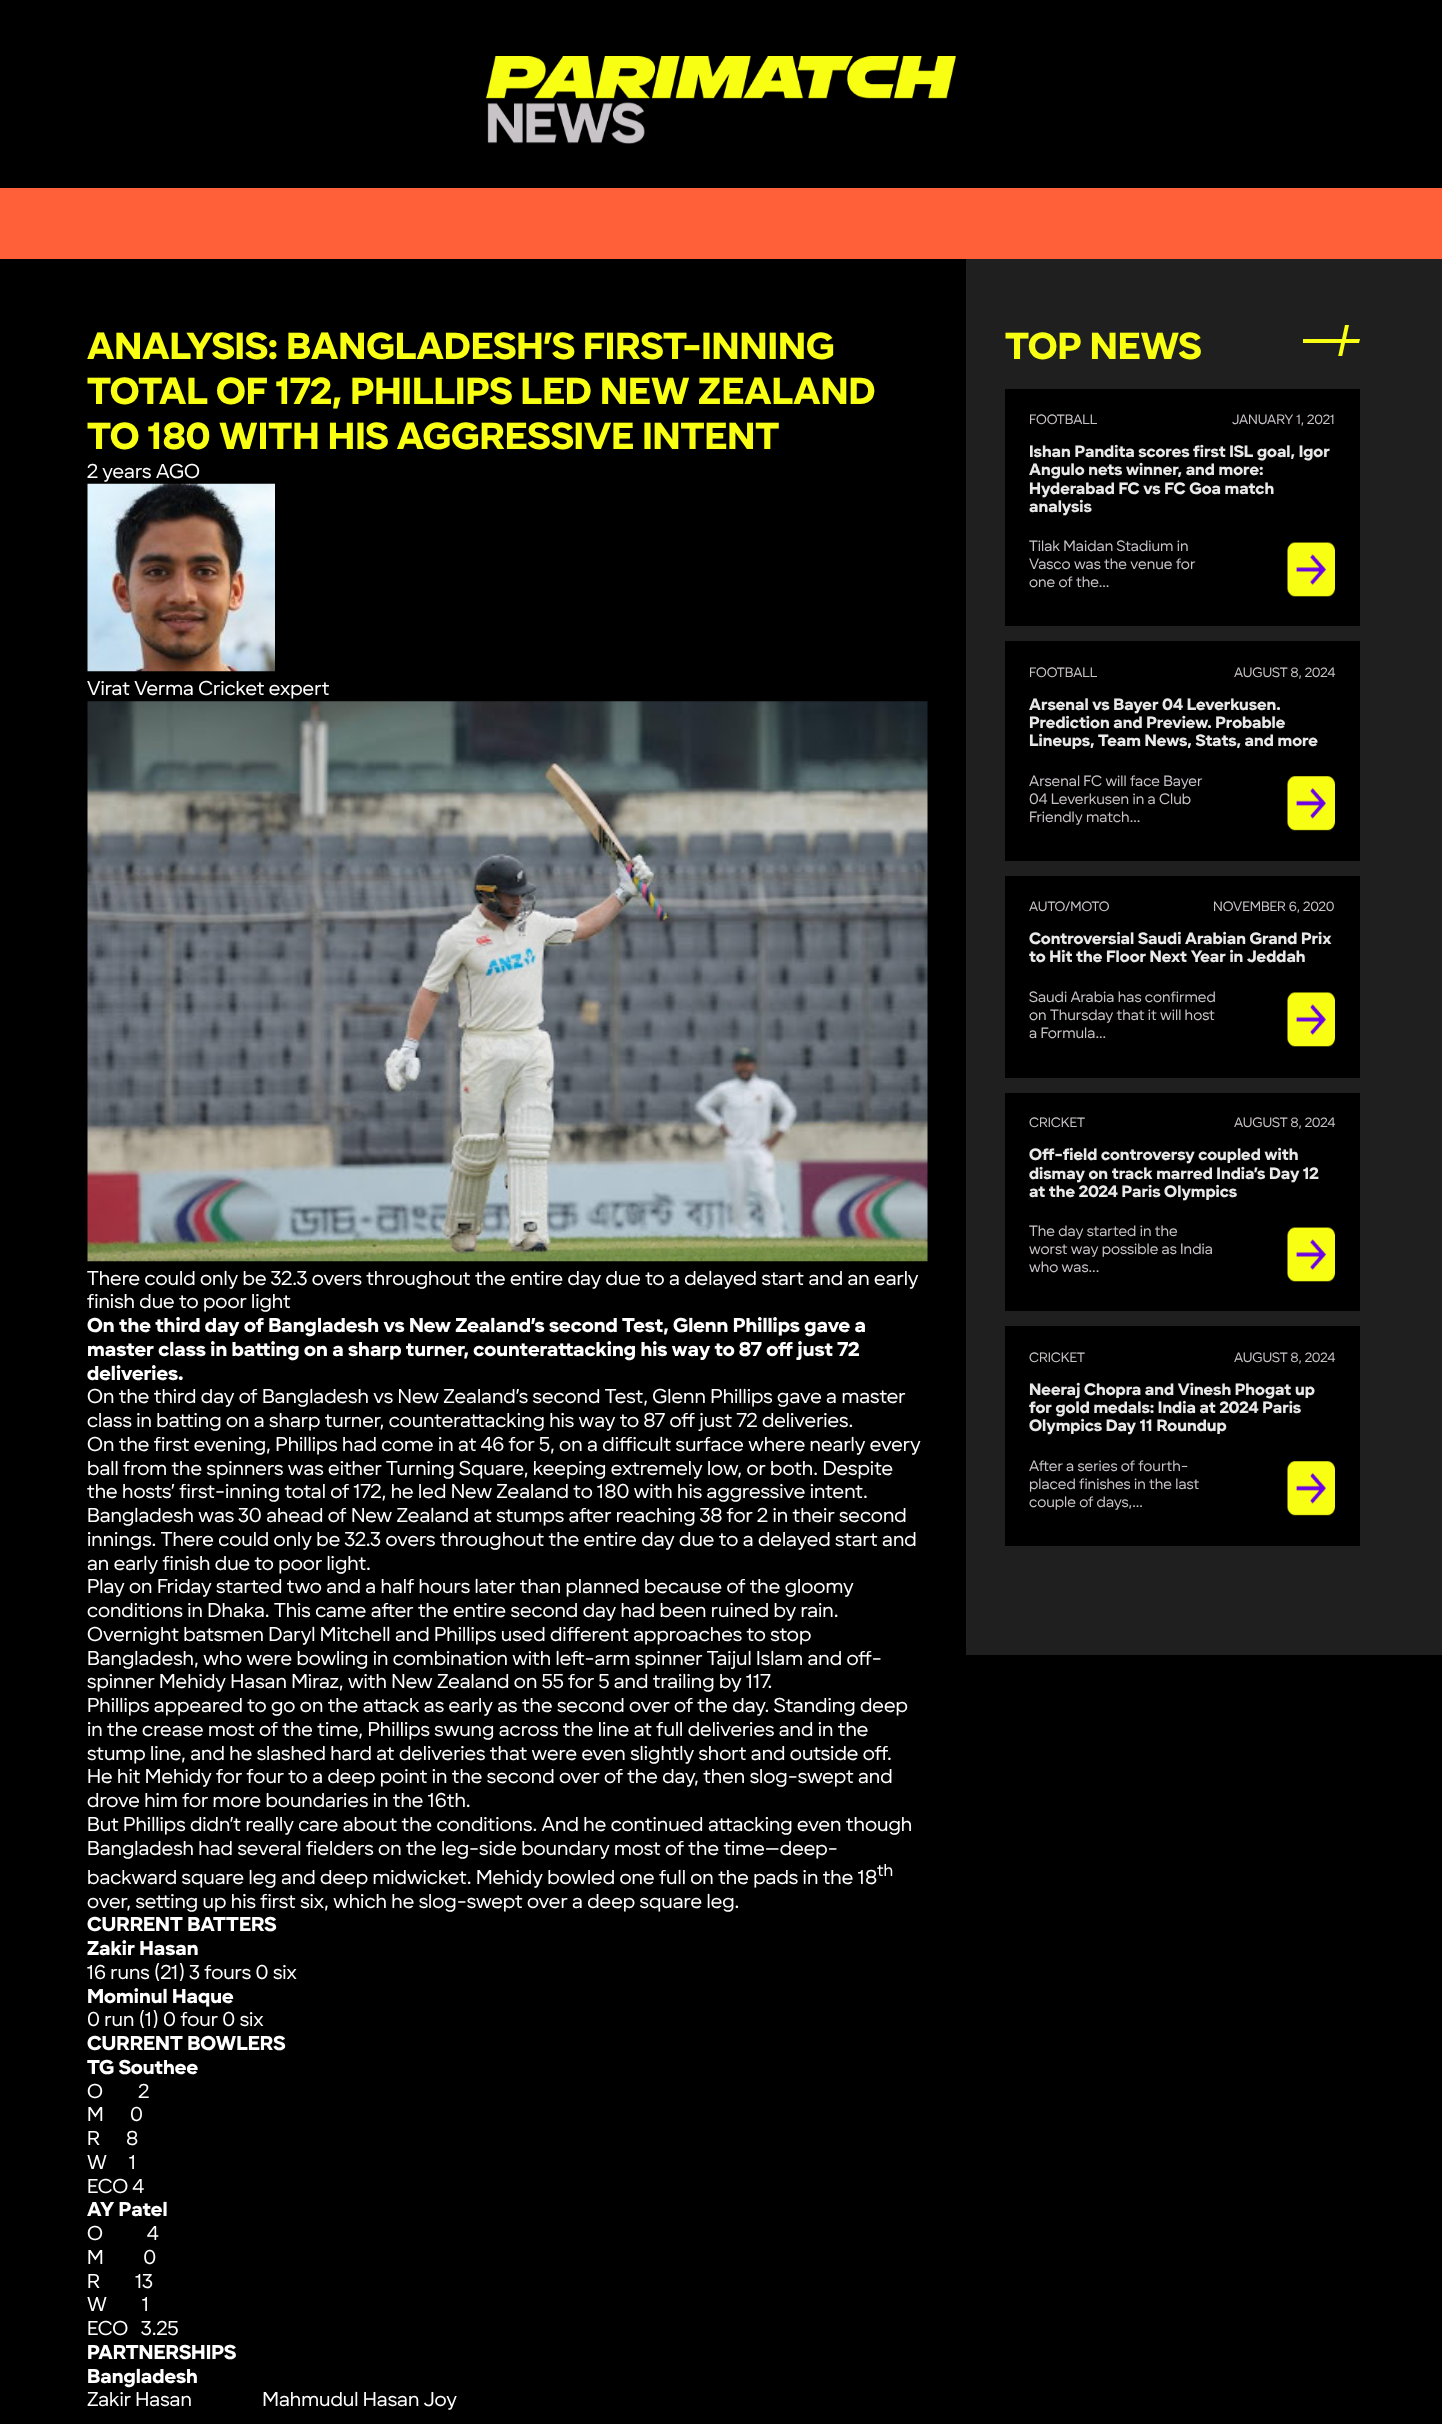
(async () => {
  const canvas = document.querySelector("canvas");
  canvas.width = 1442;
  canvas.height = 2424;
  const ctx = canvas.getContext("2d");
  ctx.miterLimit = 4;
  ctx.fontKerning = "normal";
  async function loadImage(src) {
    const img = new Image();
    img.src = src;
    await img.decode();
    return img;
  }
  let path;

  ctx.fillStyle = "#000000";
  ctx.fillRect(0, 0, 1442, 2424);
  ctx.drawImage(await loadImage("img/1.png"), 486, 56, 470, 88);
  ctx.fillStyle = "#ff5f39";
  ctx.fillRect(0, 188, 1442, 71);
  ctx.drawImage(await loadImage("img/2.png"), 87, 483, 188, 189);
  ctx.drawImage(await loadImage("img/3.png"), 87, 701, 841, 561);
  ctx.fillStyle = "#1f1f1f";
  ctx.fillRect(966, 259, 476, 1396);
  ctx.save();
  ctx.beginPath();
  ctx.rect(1303, 325, 57, 31);
  ctx.clip();
  ctx.fillStyle = "#f8ff13";
  path = new Path2D("M1349 325L1346 339H1360L1359 343H1345L1342 357H1338L1341 343H1302L1303 339H1342L1345 325Z");
  ctx.fill(path);
  ctx.restore();
  ctx.fillStyle = "#000000";
  ctx.fillRect(1005, 389, 355, 237);
  ctx.drawImage(await loadImage("img/4.png"), 1287, 542, 48, 55);
  ctx.fillRect(1005, 641, 355, 220);
  ctx.drawImage(await loadImage("img/5.png"), 1287, 776, 48, 55);
  ctx.fillRect(1005, 876, 355, 202);
  ctx.drawImage(await loadImage("img/6.png"), 1287, 992, 48, 55);
  ctx.fillRect(1005, 1093, 355, 218);
  ctx.drawImage(await loadImage("img/4.png"), 1287, 1227, 48, 55);
  ctx.fillRect(1005, 1326, 355, 220);
  ctx.drawImage(await loadImage("img/5.png"), 1287, 1461, 48, 55);
  ctx.font = "bold 37.6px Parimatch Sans";
  ctx.fillStyle = "#f8ff13";
  for (const [text, x, y] of [
    ["ANALYSIS: BANGLADESH’S FIRST-INNING", 87, 359],
    ["TOTAL OF 172, PHILLIPS LED NEW ZEALAND", 87, 404],
    ["TO 180 WITH HIS AGGRESSIVE INTENT", 87, 449],
  ]) {
    ctx.fillText(text, x, y);
  }
  ctx.font = "20px Parimatch Sans";
  ctx.fillStyle = "#ffffff";
  for (const [text, x, y] of [
    ["2 years AGO", 87, 478],
    ["Virat Verma Cricket expert", 87, 695],
    ["There could only be 32.3 overs throughout the entire day due to a delayed start and an early", 87, 1285],
    ["finish due to poor light", 87, 1308],
  ]) {
    ctx.fillText(text, x, y);
  }
  ctx.font = "bold 20px Parimatch Sans";
  for (const [text, x, y] of [
    ["On the third day of Bangladesh vs New Zealand’s second Test, Glenn Phillips gave a", 87, 1332],
    ["master class in batting on a sharp turner, counterattacking his way to 87 off just 72", 87, 1356],
    ["deliveries.", 87, 1380],
  ]) {
    ctx.fillText(text, x, y);
  }
  ctx.font = "20px Parimatch Sans";
  for (const [text, x, y] of [
    ["On the third day of Bangladesh vs New Zealand’s second Test, Glenn Phillips gave a master", 87, 1403],
    ["class in batting on a sharp turner, counterattacking his way to 87 off just 72 deliveries.", 87, 1427],
    ["On the first evening, Phillips had come in at 46 for 5, on a difficult surface where nearly every", 87, 1451],
    ["ball from the spinners was either Turning Square, keeping extremely low, or both. Despite", 87, 1475],
    ["the hosts’ first-inning total of 172, he led New Zealand to 180 with his aggressive intent.", 87, 1498],
    ["Bangladesh was 30 ahead of New Zealand at stumps after reaching 38 for 2 in their second", 87, 1522],
    ["innings. There could only be 32.3 overs throughout the entire day due to a delayed start and", 87, 1546],
    ["an early finish due to poor light.", 87, 1570],
    ["Play on Friday started two and a half hours later than planned because of the gloomy", 87, 1593],
    ["conditions in Dhaka. This came after the entire second day had been ruined by rain.", 87, 1617],
    ["Overnight batsmen Daryl Mitchell and Phillips used different approaches to stop", 87, 1641],
    ["Bangladesh, who were bowling in combination with left-arm spinner Taijul Islam and off-", 87, 1665],
    ["spinner Mehidy Hasan Miraz, with New Zealand on 55 for 5 and trailing by 117.", 87, 1688],
    ["Phillips appeared to go on the attack as early as the second over of the day. Standing deep", 87, 1712],
    ["in the crease most of the time, Phillips swung across the line at full deliveries and in the", 87, 1736],
    ["stump line, and he slashed hard at deliveries that were even slightly short and outside off.", 87, 1760],
    ["He hit Mehidy for four to a deep point in the second over of the day, then slog-swept and", 87, 1783],
    ["drove him for more boundaries in the 16th.", 87, 1807],
    ["But Phillips didn’t really care about the conditions. And he continued attacking even though", 87, 1831],
    ["Bangladesh had several fielders on the leg-side boundary most of the time—deep-", 87, 1855],
    ["backward square leg and deep midwicket. Mehidy bowled one full on the pads in the 18", 87, 1884],
  ]) {
    ctx.fillText(text, x, y);
  }
  ctx.font = "17px Parimatch Sans";
  ctx.fillText("th", 877, 1876);
  ctx.font = "20px Parimatch Sans";
  ctx.fillText("over, setting up his first six, which he slog-swept over a deep square leg.", 87, 1908);
  ctx.font = "bold 20px Parimatch Sans";
  ctx.fillText("CURRENT BATTERS", 87, 1931);
  ctx.fillText("Zakir Hasan", 87, 1955);
  ctx.font = "20px Parimatch Sans";
  ctx.fillText("16 runs (21) 3 fours 0 six", 87, 1979);
  ctx.font = "bold 20px Parimatch Sans";
  ctx.fillText("Mominul Haque", 87, 2003);
  ctx.font = "20px Parimatch Sans";
  ctx.fillText("0 run (1) 0 four 0 six", 87, 2026);
  ctx.font = "bold 20px Parimatch Sans";
  ctx.fillText("CURRENT BOWLERS", 87, 2050);
  ctx.fillText("TG Southee", 87, 2074);
  ctx.font = "20px Parimatch Sans";
  for (const [text, x, y] of [
    ["O        2", 87, 2098],
    ["M      0", 87, 2121],
    ["R      8", 87, 2145],
    ["W     1", 87, 2169],
    ["ECO 4", 87, 2193],
  ]) {
    ctx.fillText(text, x, y);
  }
  ctx.font = "bold 20px Parimatch Sans";
  ctx.fillText("AY Patel", 87, 2216);
  ctx.font = "20px Parimatch Sans";
  for (const [text, x, y] of [
    ["O          4", 87, 2240],
    ["M         0", 87, 2264],
    ["R        13", 87, 2288],
    ["W        1", 87, 2311],
    ["ECO   3.25", 87, 2335],
  ]) {
    ctx.fillText(text, x, y);
  }
  ctx.font = "bold 20px Parimatch Sans";
  ctx.fillText("PARTNERSHIPS", 87, 2359);
  ctx.fillText("Bangladesh", 87, 2383);
  ctx.font = "20px Parimatch Sans";
  ctx.fillText("Zakir Hasan                Mahmudul Hasan Joy", 87, 2406);
  ctx.font = "bold 37.6px Parimatch Sans";
  ctx.fillStyle = "#f8ff13";
  ctx.fillText("TOP NEWS", 1005, 359);
  ctx.font = "13.5px Parimatch Sans";
  ctx.fillStyle = "#c8c3c7";
  ctx.fillText("FOOTBALL", 1029, 424);
  ctx.fillText("JANUARY 1, 2021", 1232, 424);
  ctx.font = "bold 16.5px Parimatch Sans";
  ctx.fillStyle = "#e8e8e8";
  for (const [text, x, y] of [
    ["Ishan Pandita scores first ISL goal, Igor", 1029, 457],
    ["Angulo nets winner, and more:", 1029, 475],
    ["Hyderabad FC vs FC Goa match", 1029, 494],
    ["analysis", 1029, 512],
  ]) {
    ctx.fillText(text, x, y);
  }
  ctx.font = "15px Parimatch Sans";
  ctx.fillStyle = "#c8c3c7";
  for (const [text, x, y] of [
    ["Tilak Maidan Stadium in", 1029, 551],
    ["Vasco was the venue for", 1029, 569],
    ["one of the...", 1029, 587],
  ]) {
    ctx.fillText(text, x, y);
  }
  ctx.font = "13.5px Parimatch Sans";
  ctx.fillText("FOOTBALL", 1029, 677);
  ctx.fillText("AUGUST 8, 2024", 1234, 677);
  ctx.font = "bold 16.5px Parimatch Sans";
  ctx.fillStyle = "#e8e8e8";
  for (const [text, x, y] of [
    ["Arsenal vs Bayer 04 Leverkusen.", 1029, 710],
    ["Prediction and Preview. Probable", 1029, 728],
    ["Lineups, Team News, Stats, and more", 1029, 746],
  ]) {
    ctx.fillText(text, x, y);
  }
  ctx.font = "15px Parimatch Sans";
  ctx.fillStyle = "#c8c3c7";
  for (const [text, x, y] of [
    ["Arsenal FC will face Bayer", 1029, 786],
    ["04 Leverkusen in a Club", 1029, 804],
    ["Friendly match...", 1029, 822],
  ]) {
    ctx.fillText(text, x, y);
  }
  ctx.font = "13.5px Parimatch Sans";
  ctx.fillText("AUTO/MOTO", 1029, 911);
  ctx.fillText("NOVEMBER 6, 2020", 1213, 911);
  ctx.font = "bold 16.5px Parimatch Sans";
  ctx.fillStyle = "#e8e8e8";
  ctx.fillText("Controversial Saudi Arabian Grand Prix", 1029, 944);
  ctx.fillText("to Hit the Floor Next Year in Jeddah", 1029, 962);
  ctx.font = "15px Parimatch Sans";
  ctx.fillStyle = "#c8c3c7";
  for (const [text, x, y] of [
    ["Saudi Arabia has confirmed", 1029, 1002],
    ["on Thursday that it will host", 1029, 1020],
    ["a Formula...", 1029, 1038],
  ]) {
    ctx.fillText(text, x, y);
  }
  ctx.font = "13.5px Parimatch Sans";
  ctx.fillText("CRICKET", 1029, 1127);
  ctx.fillText("AUGUST 8, 2024", 1234, 1127);
  ctx.font = "bold 16.5px Parimatch Sans";
  ctx.fillStyle = "#e8e8e8";
  for (const [text, x, y] of [
    ["Off-field controversy coupled with", 1029, 1160],
    ["dismay on track marred India’s Day 12", 1029, 1179],
    ["at the 2024 Paris Olympics", 1029, 1197],
  ]) {
    ctx.fillText(text, x, y);
  }
  ctx.font = "15px Parimatch Sans";
  ctx.fillStyle = "#c8c3c7";
  for (const [text, x, y] of [
    ["The day started in the", 1029, 1236],
    ["worst way possible as India", 1029, 1254],
    ["who was...", 1029, 1272],
  ]) {
    ctx.fillText(text, x, y);
  }
  ctx.font = "13.5px Parimatch Sans";
  ctx.fillText("CRICKET", 1029, 1362);
  ctx.fillText("AUGUST 8, 2024", 1234, 1362);
  ctx.font = "bold 16.5px Parimatch Sans";
  ctx.fillStyle = "#e8e8e8";
  for (const [text, x, y] of [
    ["Neeraj Chopra and Vinesh Phogat up", 1029, 1395],
    ["for gold medals: India at 2024 Paris", 1029, 1413],
    ["Olympics Day 11 Roundup", 1029, 1431],
  ]) {
    ctx.fillText(text, x, y);
  }
  ctx.font = "15px Parimatch Sans";
  ctx.fillStyle = "#c8c3c7";
  for (const [text, x, y] of [
    ["After a series of fourth-", 1029, 1471],
    ["placed finishes in the last", 1029, 1489],
    ["couple of days,...", 1029, 1507],
  ]) {
    ctx.fillText(text, x, y);
  }
})();
